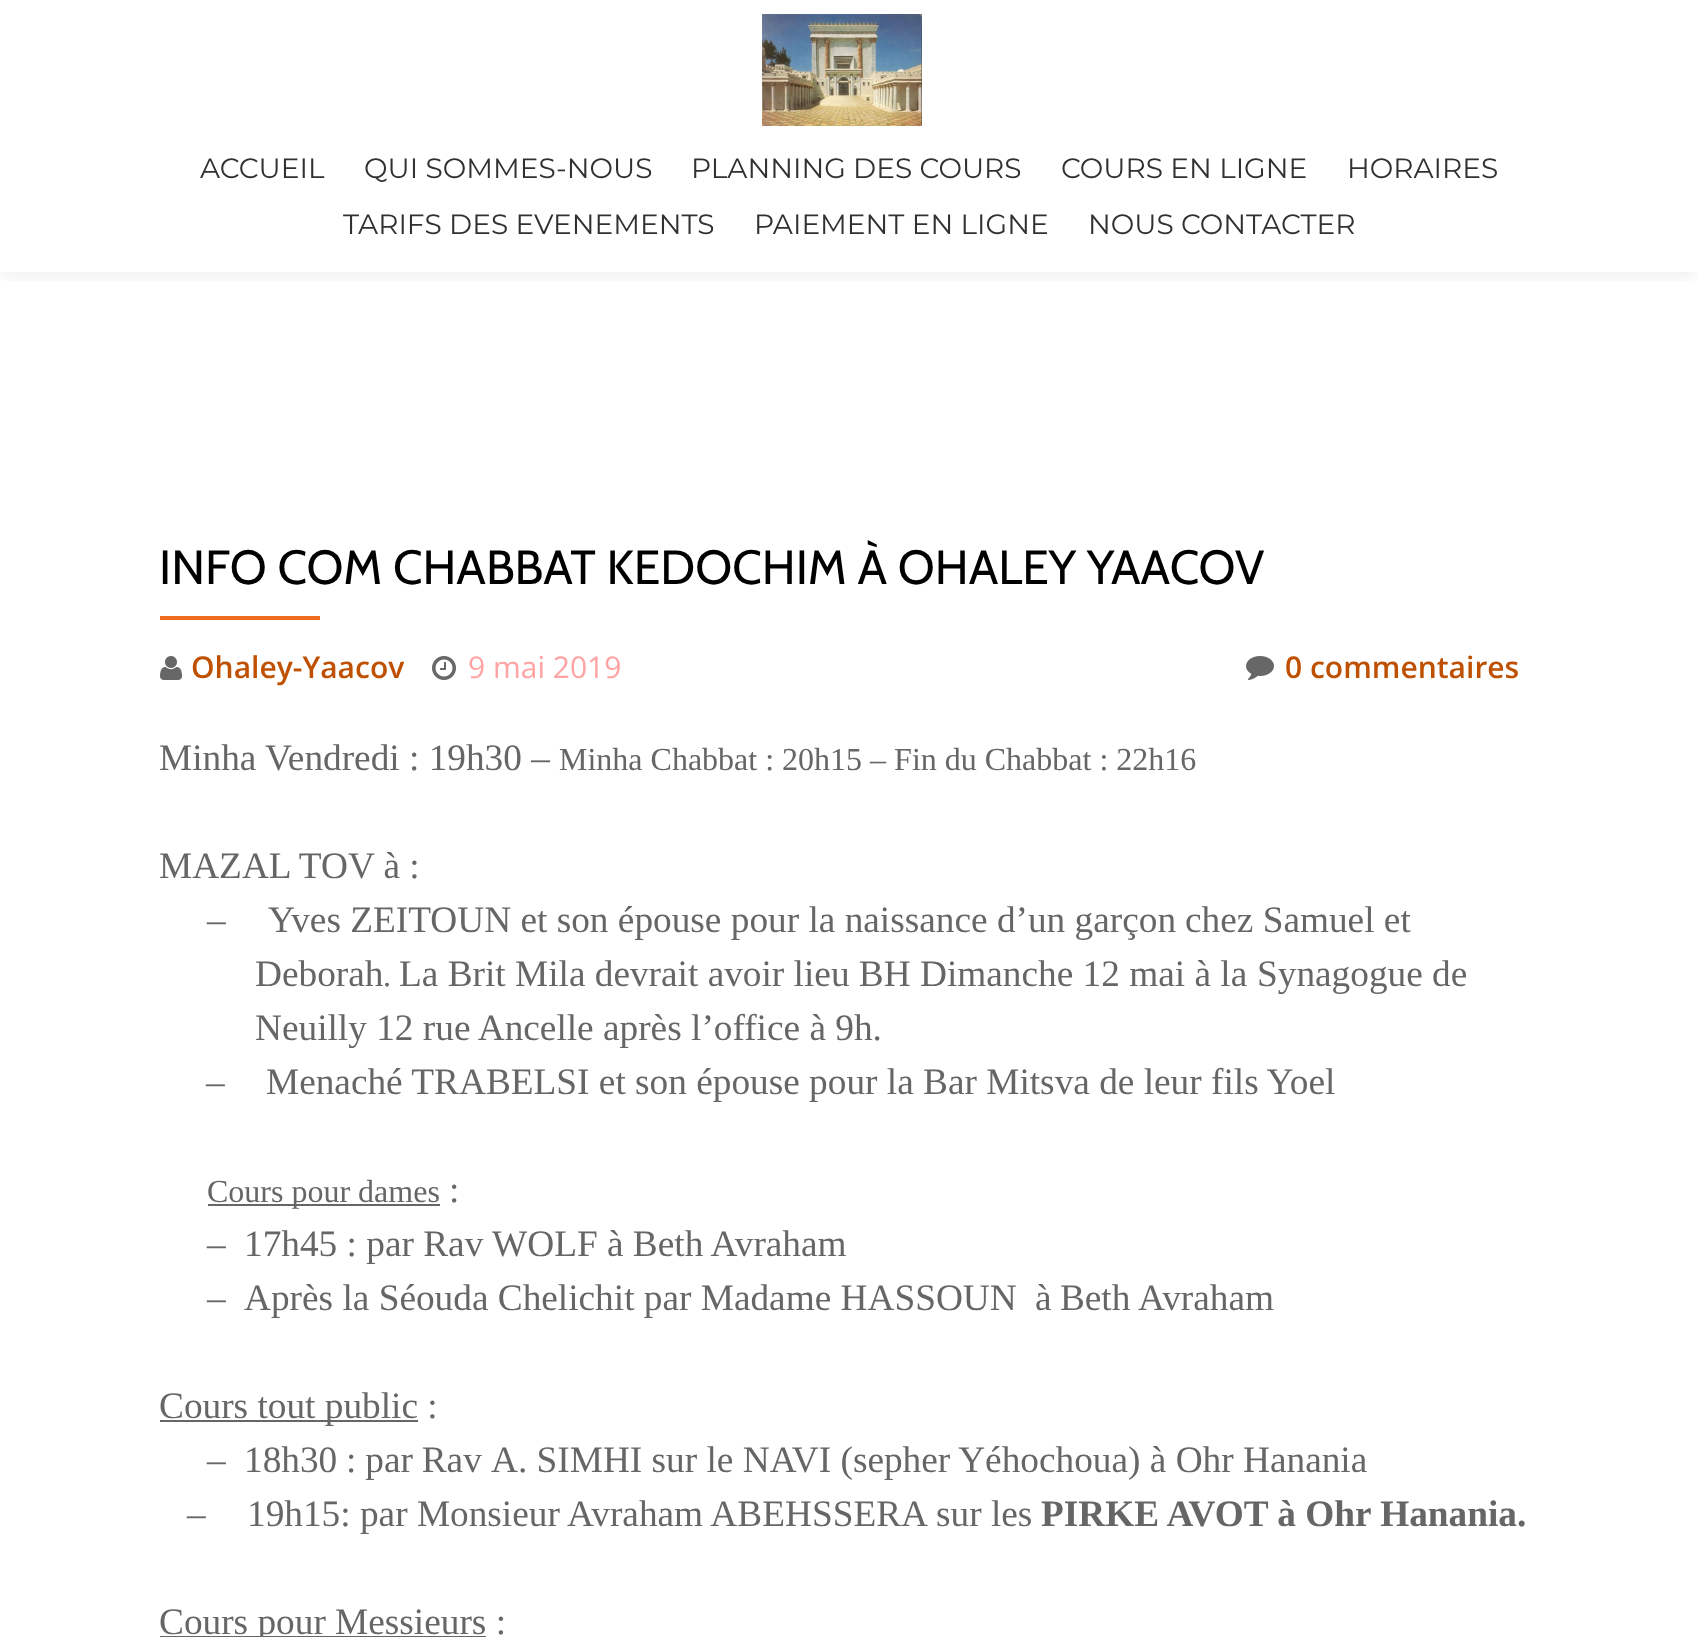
(async () => {
  const canvas = document.querySelector("canvas");
  canvas.width = 1697;
  canvas.height = 1637;
  const ctx = canvas.getContext("2d");
  ctx.miterLimit = 4;
  ctx.fontKerning = "normal";
  async function loadImage(src) {
    const img = new Image();
    img.src = src;
    await img.decode();
    return img;
  }

  ctx.fillStyle = "#ffffff";
  ctx.fillRect(0, 0, 1697, 1637);
  ctx.save();
  ctx.beginPath();
  ctx.rect(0, 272, 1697, 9);
  ctx.clip();
  ctx.fillStyle = "rgba(50, 50, 50, 0.08)";
  ctx.filter = "blur(8px)";
  ctx.beginPath();
  ctx.rect(0, 4, 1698, 272);
  ctx.fill();
  ctx.filter = "none";
  ctx.restore();
  ctx.drawImage(await loadImage("img/1.png"), 762, 14, 160, 112);
  ctx.fillStyle = "#f16c20";
  ctx.fillRect(160, 616, 160, 4);
  ctx.drawImage(await loadImage("img/2.png"), 160, 656, 22, 24);
  ctx.drawImage(await loadImage("img/3.png"), 432, 656, 24, 24);
  ctx.drawImage(await loadImage("img/4.png"), 1246, 656, 28, 24);
  for (const [x, y, w, h, color] of [
    [208, 1204, 232, 2, "#666666"],
    [160, 1420, 258, 2, "#666666"],
    [160, 1636, 326, 1, "#666666"],
  ]) {
    ctx.fillStyle = color;
    ctx.fillRect(x, y, w, h);
  }
  ctx.font = "28px Montserrat";
  ctx.fillStyle = "#313131";
  for (const [text, x, y] of [
    ["ACCUEIL", 200, 178],
    ["QUI SOMMES-NOUS", 364, 178],
    ["PLANNING DES COURS", 691, 178],
    ["COURS EN LIGNE", 1061, 178],
    ["HORAIRES", 1347, 178],
    ["TARIFS DES EVENEMENTS", 343, 234],
    ["PAIEMENT EN LIGNE", 754, 234],
    ["NOUS CONTACTER", 1088, 234],
  ]) {
    ctx.fillText(text, x, y);
  }
  ctx.font = "48px Cabin";
  ctx.fillStyle = "#000000";
  ctx.fillText("INFO COM CHABBAT KEDOCHIM À OHALEY YAACOV", 159, 584);
  ctx.font = "600 30px Open Sans";
  ctx.fillStyle = "#be5000";
  ctx.fillText("Ohaley-Yaacov", 191, 678);
  ctx.font = "30px Open Sans";
  ctx.fillStyle = "#ffa3a3";
  ctx.fillText("9 mai 2019", 468, 678);
  ctx.font = "600 30px Open Sans";
  ctx.fillStyle = "#be5000";
  ctx.fillText("0 commentaires", 1285, 678);
  ctx.font = "37.3px Liberation Serif";
  ctx.fillStyle = "#666666";
  ctx.fillText("Minha Vendredi : 19h30 –", 159, 770);
  ctx.font = "32px Liberation Serif";
  ctx.fillText("Minha Chabbat : 20h15 – Fin du Chabbat : 22h16", 559, 770);
  ctx.font = "37.3px Liberation Serif";
  for (const [text, x, y] of [
    ["MAZAL TOV à :", 159, 878],
    ["–", 207, 932],
    ["Yves ZEITOUN et son épouse pour la naissance d’un garçon", 268, 932],
    ["chez Samuel et", 1185, 932],
    ["Deborah", 255, 986],
  ]) {
    ctx.fillText(text, x, y);
  }
  ctx.font = "32px Liberation Serif";
  ctx.fillText(".", 383, 986);
  ctx.font = "37.3px Liberation Serif";
  for (const [text, x, y] of [
    ["La Brit Mila devrait avoir lieu BH Dimanche 12 mai à la", 399, 986],
    ["Synagogue de", 1257, 986],
    ["Neuilly 12 rue Ancelle après l’office à 9h.", 255, 1040],
    ["–", 206, 1094],
    ["Menaché TRABELSI et son épouse pour la Bar Mitsva de leur fils Yoel", 266, 1094],
  ]) {
    ctx.fillText(text, x, y);
  }
  ctx.font = "32px Liberation Serif";
  ctx.fillText("Cours pour dames", 207, 1202);
  ctx.font = "37.3px Liberation Serif";
  for (const [text, x, y] of [
    [":", 449, 1202],
    ["–", 207, 1256],
    ["17h45 : par Rav", 244, 1256],
    ["WOLF à Beth Avraham", 492, 1256],
    ["–", 207, 1310],
    ["Après la Séouda Chelichit par Madame HASSOUN", 244, 1310],
  ]) {
    ctx.fillText(text, x, y);
  }
  ctx.wordSpacing = "-1px";
  ctx.fillText("à Beth", 1035, 1310);
  ctx.wordSpacing = "0px";
  for (const [text, x, y] of [
    ["Avraham", 1138, 1310],
    ["Cours tout public :", 159, 1418],
    ["–", 207, 1472],
  ]) {
    ctx.fillText(text, x, y);
  }
  ctx.wordSpacing = "-0.5px";
  ctx.fillText("18h30 : par Rav", 244, 1472);
  ctx.wordSpacing = "0px";
  for (const [text, x, y] of [
    ["A. SIMHI sur le NAVI (sepher Yéhochoua) à Ohr", 491, 1472],
    ["Hanania", 1243, 1472],
    ["–", 187, 1526],
    ["19h15: par Monsieur Avraham ABEHSSERA", 247, 1526],
    ["sur les", 936, 1526],
  ]) {
    ctx.fillText(text, x, y);
  }
  ctx.font = "bold 37.3px Liberation Serif";
  ctx.fillText("PIRKE AVOT à Ohr Hanania.", 1041, 1526);
  ctx.font = "37.3px Liberation Serif";
  ctx.fillText("Cours pour Messieurs :", 159, 1634);
})();
